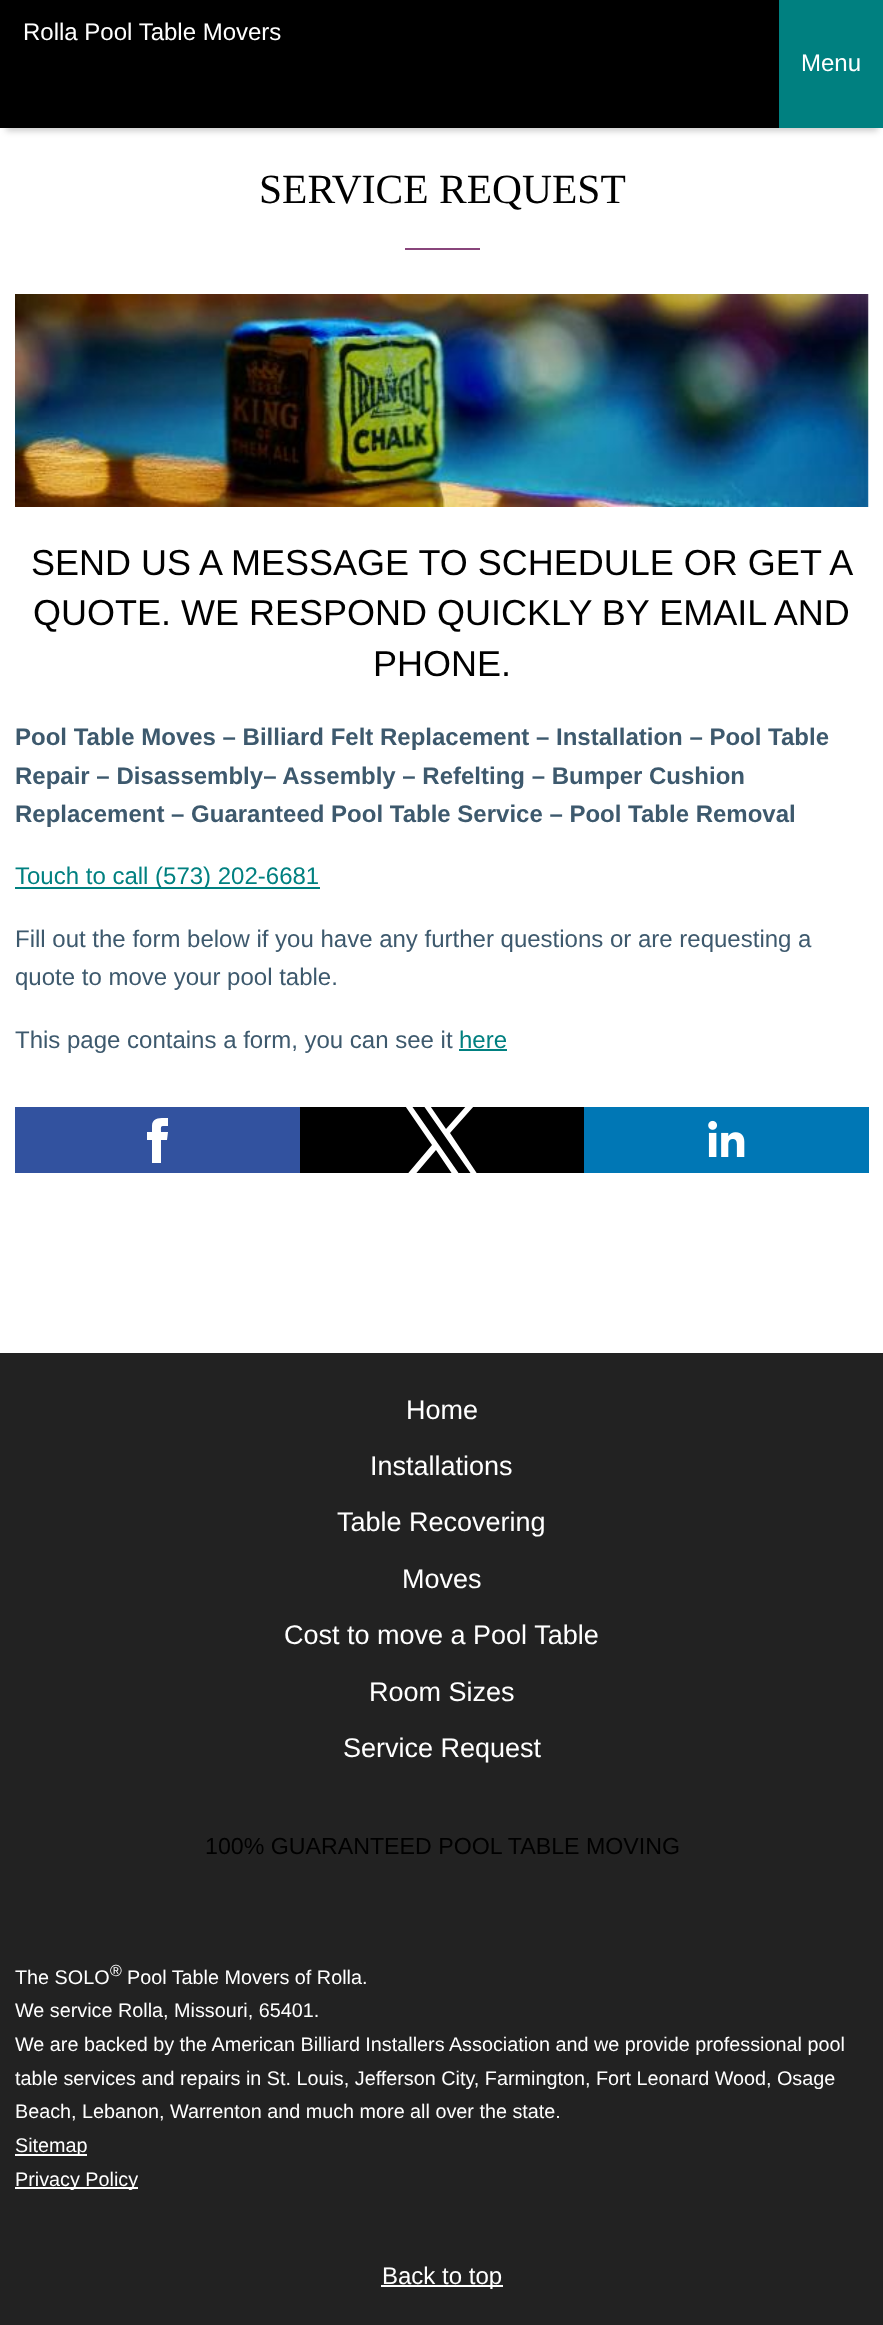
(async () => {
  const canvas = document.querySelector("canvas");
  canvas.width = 883;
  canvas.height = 2325;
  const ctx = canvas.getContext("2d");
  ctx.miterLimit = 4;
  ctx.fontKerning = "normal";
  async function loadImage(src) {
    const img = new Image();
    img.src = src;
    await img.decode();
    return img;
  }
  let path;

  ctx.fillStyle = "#ffffff";
  ctx.fillRect(0, 0, 883, 2325);
  ctx.fillStyle = "rgba(0, 0, 0, 0.2)";
  ctx.filter = "blur(3px)";
  ctx.beginPath();
  ctx.rect(6, 15, 872, 116);
  ctx.fill();
  ctx.filter = "none";
  for (const [x, y, w, h, color] of [
    [0, 0, 779, 128, "#000000"],
    [779, 0, 104, 128, "#008080"],
    [405, 248, 75, 2, "#88457b"],
  ]) {
    ctx.fillStyle = color;
    ctx.fillRect(x, y, w, h);
  }
  ctx.drawImage(await loadImage("img/1.png"), 15, 294, 854, 213);
  for (const [x, y, w, h, color] of [
    [15, 887, 305, 2, "#008080"],
    [459, 1049, 48, 2, "#008080"],
    [15, 1107, 285, 66, "#32529f"],
  ]) {
    ctx.fillStyle = color;
    ctx.fillRect(x, y, w, h);
  }
  ctx.fillStyle = "#ffffff";
  path = new Path2D("M152 1132H147V1140H152V1163H161V1140H167L168 1132H161C161 1125 160 1126 168 1126V1118C161 1118 152 1117 152 1126Z");
  ctx.fill(path);
  ctx.fillStyle = "#000000";
  ctx.fillRect(300, 1107, 284, 66);
  ctx.save();
  ctx.beginPath();
  ctx.rect(399, 1107, 86, 66);
  ctx.clip();
  ctx.fillStyle = "#ffffff";
  path = new Path2D("M450 1133L482 1097H474L446 1129L424 1097H399L432 1145L399 1184H407L436 1150L459 1184H484ZM439 1145L409 1102H421L474 1178H462Z");
  ctx.fill(path);
  ctx.restore();
  ctx.fillStyle = "#0077b5";
  ctx.fillRect(584, 1107, 285, 66);
  ctx.drawImage(await loadImage("img/2.png"), 708, 1120, 37, 37);
  for (const [x, y, w, h, color] of [
    [0, 1353, 883, 972, "#222222"],
    [15, 2154, 72, 2, "#ffffff"],
    [15, 2187, 123, 2, "#ffffff"],
    [381, 2285, 122, 2, "#ffffff"],
  ]) {
    ctx.fillStyle = color;
    ctx.fillRect(x, y, w, h);
  }
  ctx.font = "24px Liberation Sans";
  ctx.fillText("Rolla Pool Table Movers", 23, 40);
  ctx.fillText("Menu", 801, 71);
  ctx.font = "41.5px Liberation Serif";
  ctx.fillStyle = "#000000";
  ctx.fillText("SERVICE REQUEST", 259, 203);
  ctx.font = "36px Liberation Sans";
  for (const [text, x, y] of [
    ["SEND US A MESSAGE TO SCHEDULE OR GET A", 31, 575],
    ["QUOTE. WE RESPOND QUICKLY BY EMAIL AND", 33, 625],
    ["PHONE.", 373, 676],
  ]) {
    ctx.fillText(text, x, y);
  }
  ctx.font = "bold 24px Liberation Sans";
  ctx.fillStyle = "#3d596d";
  for (const [text, x, y] of [
    ["Pool Table Moves – Billiard Felt Replacement – Installation – Pool Table", 15, 745],
    ["Repair – Disassembly– Assembly – Refelting – Bumper Cushion", 15, 784],
    ["Replacement – Guaranteed Pool Table Service – Pool Table Removal", 15, 822],
  ]) {
    ctx.fillText(text, x, y);
  }
  ctx.font = "24px Liberation Sans";
  ctx.fillStyle = "#008080";
  ctx.fillText("Touch to call (573) 202-6681", 15, 884);
  ctx.fillStyle = "#3d596d";
  for (const [text, x, y] of [
    ["Fill out the form below if you have any further questions or are requesting a", 15, 947],
    ["quote to move your pool table.", 15, 985],
    ["This page contains a form, you can see it", 15, 1048],
  ]) {
    ctx.fillText(text, x, y);
  }
  ctx.fillStyle = "#008080";
  ctx.fillText("here", 459, 1048);
  ctx.font = "27px Liberation Sans";
  ctx.fillStyle = "#ffffff";
  for (const [text, x, y] of [
    ["Home", 406, 1419],
    ["Installations", 370, 1475],
    ["Table Recovering", 337, 1531],
    ["Moves", 402, 1588],
    ["Cost to move a Pool Table", 284, 1644],
    ["Room Sizes", 369, 1701],
    ["Service Request", 343, 1757],
  ]) {
    ctx.fillText(text, x, y);
  }
  ctx.font = "23.2px Liberation Sans";
  ctx.fillStyle = "#000000";
  ctx.fillText("100% GUARANTEED POOL TABLE MOVING", 205, 1854);
  ctx.font = "19.8px Liberation Sans";
  ctx.fillStyle = "#ffffff";
  ctx.fillText("The SOLO", 15, 1984);
  ctx.font = "16px Liberation Sans";
  ctx.fillText("®", 110, 1976);
  ctx.font = "19.8px Liberation Sans";
  for (const [text, x, y] of [
    ["Pool Table Movers of Rolla.", 127, 1984],
    ["We service Rolla, Missouri, 65401.", 15, 2017],
    ["We are backed by the American Billiard Installers Association and we provide professional pool", 15, 2051],
    ["table services and repairs in St. Louis, Jefferson City, Farmington, Fort Leonard Wood, Osage", 15, 2085],
    ["Beach, Lebanon, Warrenton and much more all over the state.", 15, 2118],
    ["Sitemap", 15, 2152],
    ["Privacy Policy", 15, 2186],
  ]) {
    ctx.fillText(text, x, y);
  }
  ctx.font = "24px Liberation Sans";
  ctx.fillText("Back to top", 382, 2284);
})();
